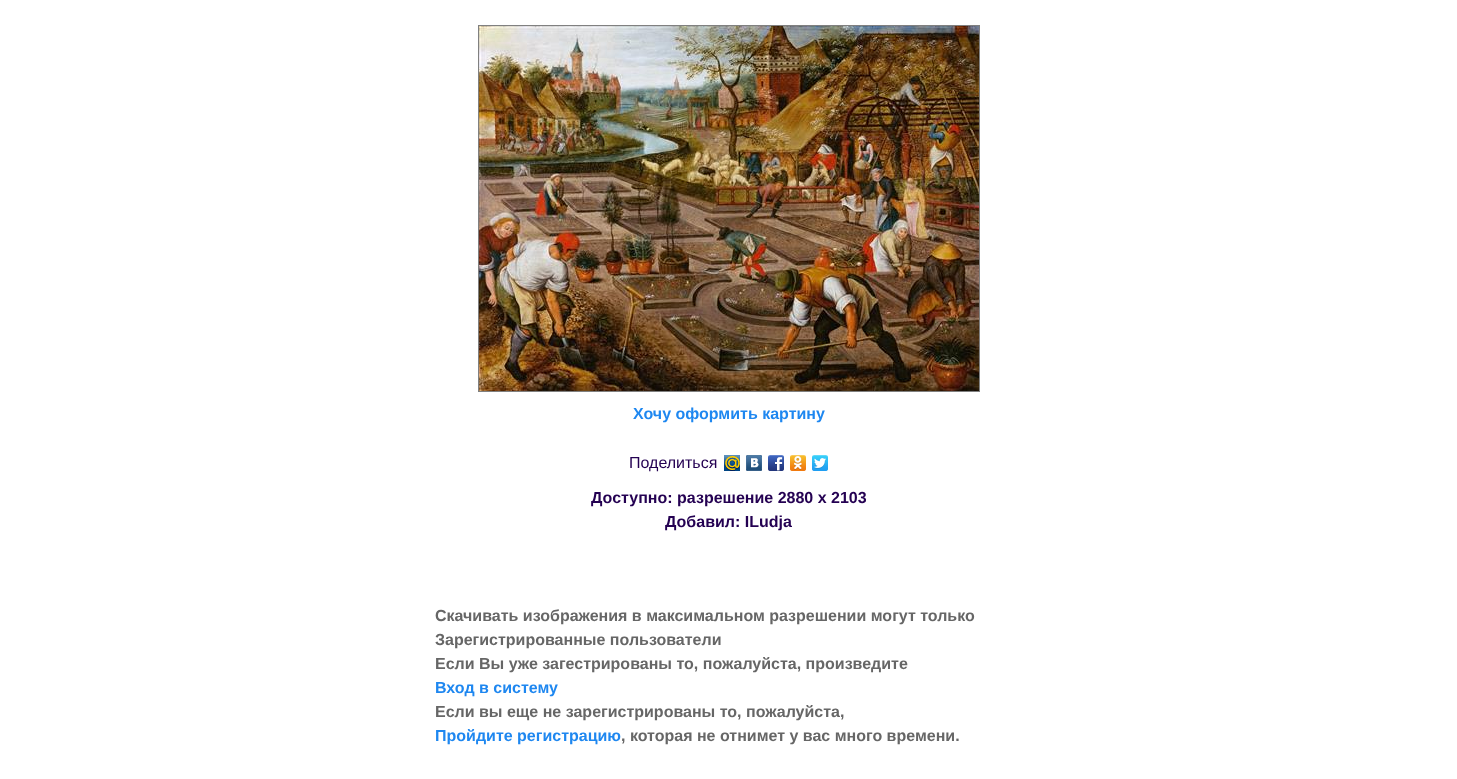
(async () => {
  const canvas = document.querySelector("canvas");
  canvas.width = 1457;
  canvas.height = 779;
  const ctx = canvas.getContext("2d");
  ctx.miterLimit = 4;
  ctx.fontKerning = "normal";
  async function loadImage(src) {
    const img = new Image();
    img.src = src;
    await img.decode();
    return img;
  }

  ctx.fillStyle = "#ffffff";
  ctx.fillRect(0, 0, 1457, 779);
  ctx.strokeStyle = "#808080";
  ctx.strokeRect(478.5, 25.5, 501, 366);
  ctx.drawImage(await loadImage("img/1.png"), 479, 26, 500, 365);
  ctx.drawImage(await loadImage("img/2.png"), 724, 455, 16, 16);
  ctx.drawImage(await loadImage("img/3.png"), 746, 455, 16, 16);
  ctx.drawImage(await loadImage("img/4.png"), 768, 455, 16, 16);
  ctx.drawImage(await loadImage("img/5.png"), 790, 455, 16, 16);
  ctx.drawImage(await loadImage("img/6.png"), 812, 455, 16, 16);
  ctx.font = "bold 16px Liberation Sans";
  ctx.fillStyle = "#1e87f0";
  ctx.fillText("Хочу оформить картину", 633, 419);
  ctx.font = "16px Liberation Sans";
  ctx.fillStyle = "#240152";
  ctx.fillText("Поделиться", 629, 468);
  ctx.font = "bold 16px Liberation Sans";
  ctx.fillText("Доступно: разрешение 2880 x 2103", 591, 503);
  ctx.fillText("Добавил: ILudja", 665, 527);
  ctx.fillStyle = "#666666";
  for (const [text, x, y] of [
    ["Скачивать изображения в максимальном разрешении могут только", 435, 621],
    ["Зарегистрированные пользователи", 435, 645],
    ["Если Вы уже загестрированы то, пожалуйста, произведите", 435, 669],
  ]) {
    ctx.fillText(text, x, y);
  }
  ctx.fillStyle = "#1e87f0";
  ctx.fillText("Вход в систему", 435, 693);
  ctx.fillStyle = "#666666";
  ctx.fillText("Если вы еще не зарегистрированы то, пожалуйста,", 435, 717);
  ctx.fillStyle = "#1e87f0";
  ctx.fillText("Пройдите регистрацию", 435, 741);
  ctx.fillStyle = "#666666";
  ctx.fillText(", которая не отнимет у вас много времени.", 621, 741);
})();
